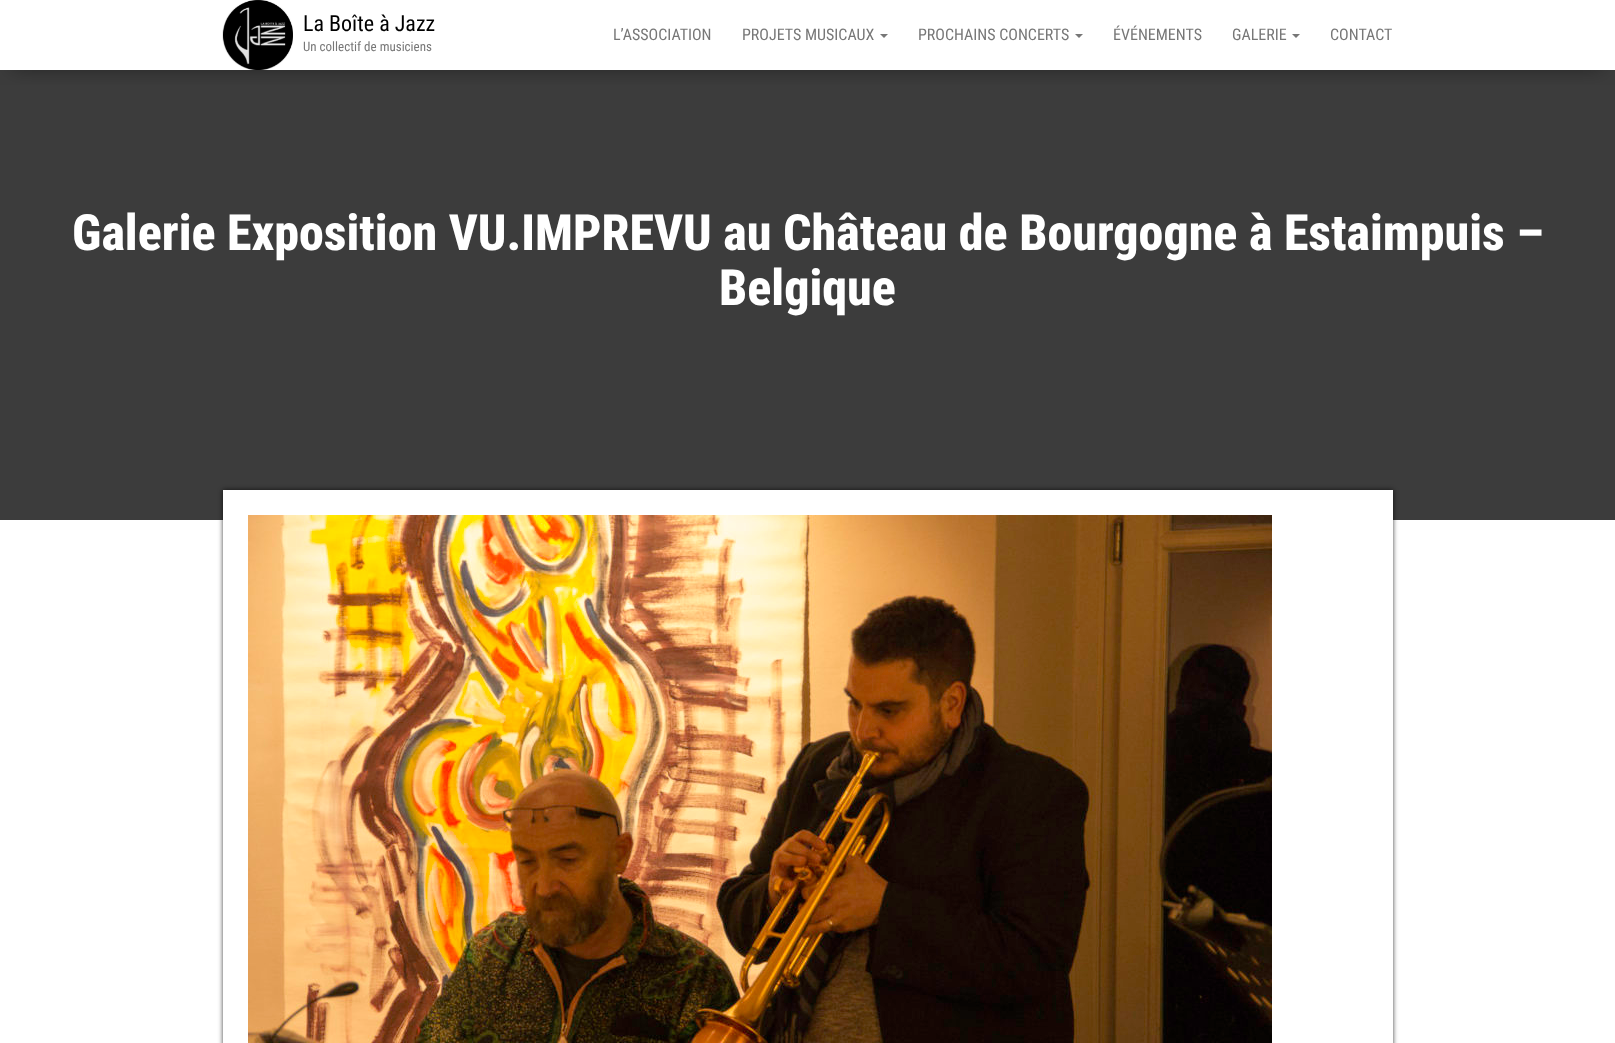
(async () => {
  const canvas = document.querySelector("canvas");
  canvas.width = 1615;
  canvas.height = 1043;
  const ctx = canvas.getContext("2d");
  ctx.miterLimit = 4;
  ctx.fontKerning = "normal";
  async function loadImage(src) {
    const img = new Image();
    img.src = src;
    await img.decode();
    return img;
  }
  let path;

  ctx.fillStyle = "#ffffff";
  ctx.fillRect(0, 0, 1615, 1043);
  ctx.fillStyle = "#3c3c3c";
  ctx.fillRect(0, 70, 1615, 450);
  ctx.save();
  ctx.beginPath();
  ctx.rect(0, 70, 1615, 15);
  ctx.clip();
  ctx.fillStyle = "rgba(0, 0, 0, 0.42)";
  ctx.filter = "blur(10px)";
  ctx.beginPath();
  ctx.rect(12, 22, 1591, 46);
  ctx.fill();
  ctx.filter = "none";
  ctx.restore();
  ctx.drawImage(await loadImage("img/1.png"), 222, 0, 71, 70);
  ctx.fillStyle = "#777777";
  path = new Path2D("M880 34H888L884 38Z");
  ctx.fill(path);
  path = new Path2D("M1075 34H1083L1079 38Z");
  ctx.fill(path);
  path = new Path2D("M1292 34H1300L1296 38Z");
  ctx.fill(path);
  ctx.fillStyle = "rgba(0, 0, 0, 0.75)";
  ctx.filter = "blur(2.5px)";
  ctx.beginPath();
  ctx.rect(223, 490, 1170, 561);
  ctx.fill();
  ctx.filter = "none";
  ctx.fillStyle = "#ffffff";
  ctx.fillRect(223, 490, 1170, 553);
  ctx.drawImage(await loadImage("img/2.png"), 248, 515, 1024, 528);
  ctx.font = "22px Roboto Condensed";
  ctx.fillStyle = "#000000";
  ctx.fillText("La Boîte à Jazz", 303, 31);
  ctx.font = "13px Roboto Condensed";
  ctx.fillStyle = "#777777";
  ctx.fillText("Un collectif de musiciens", 303, 51);
  ctx.font = "16px Roboto Condensed";
  for (const [text, x, y] of [
    ["L’ASSOCIATION", 613, 40],
    ["PROJETS MUSICAUX", 742, 40],
    ["PROCHAINS CONCERTS", 918, 40],
    ["ÉVÉNEMENTS", 1113, 40],
    ["GALERIE", 1232, 40],
    ["CONTACT", 1330, 40],
  ]) {
    ctx.fillText(text, x, y);
  }
  ctx.font = "800 50px Roboto Condensed";
  ctx.fillStyle = "#ffffff";
  ctx.fillText("Galerie Exposition VU.IMPREVU au Château de Bourgogne à Estaimpuis –", 72, 250);
  ctx.fillText("Belgique", 719, 305);
})();
